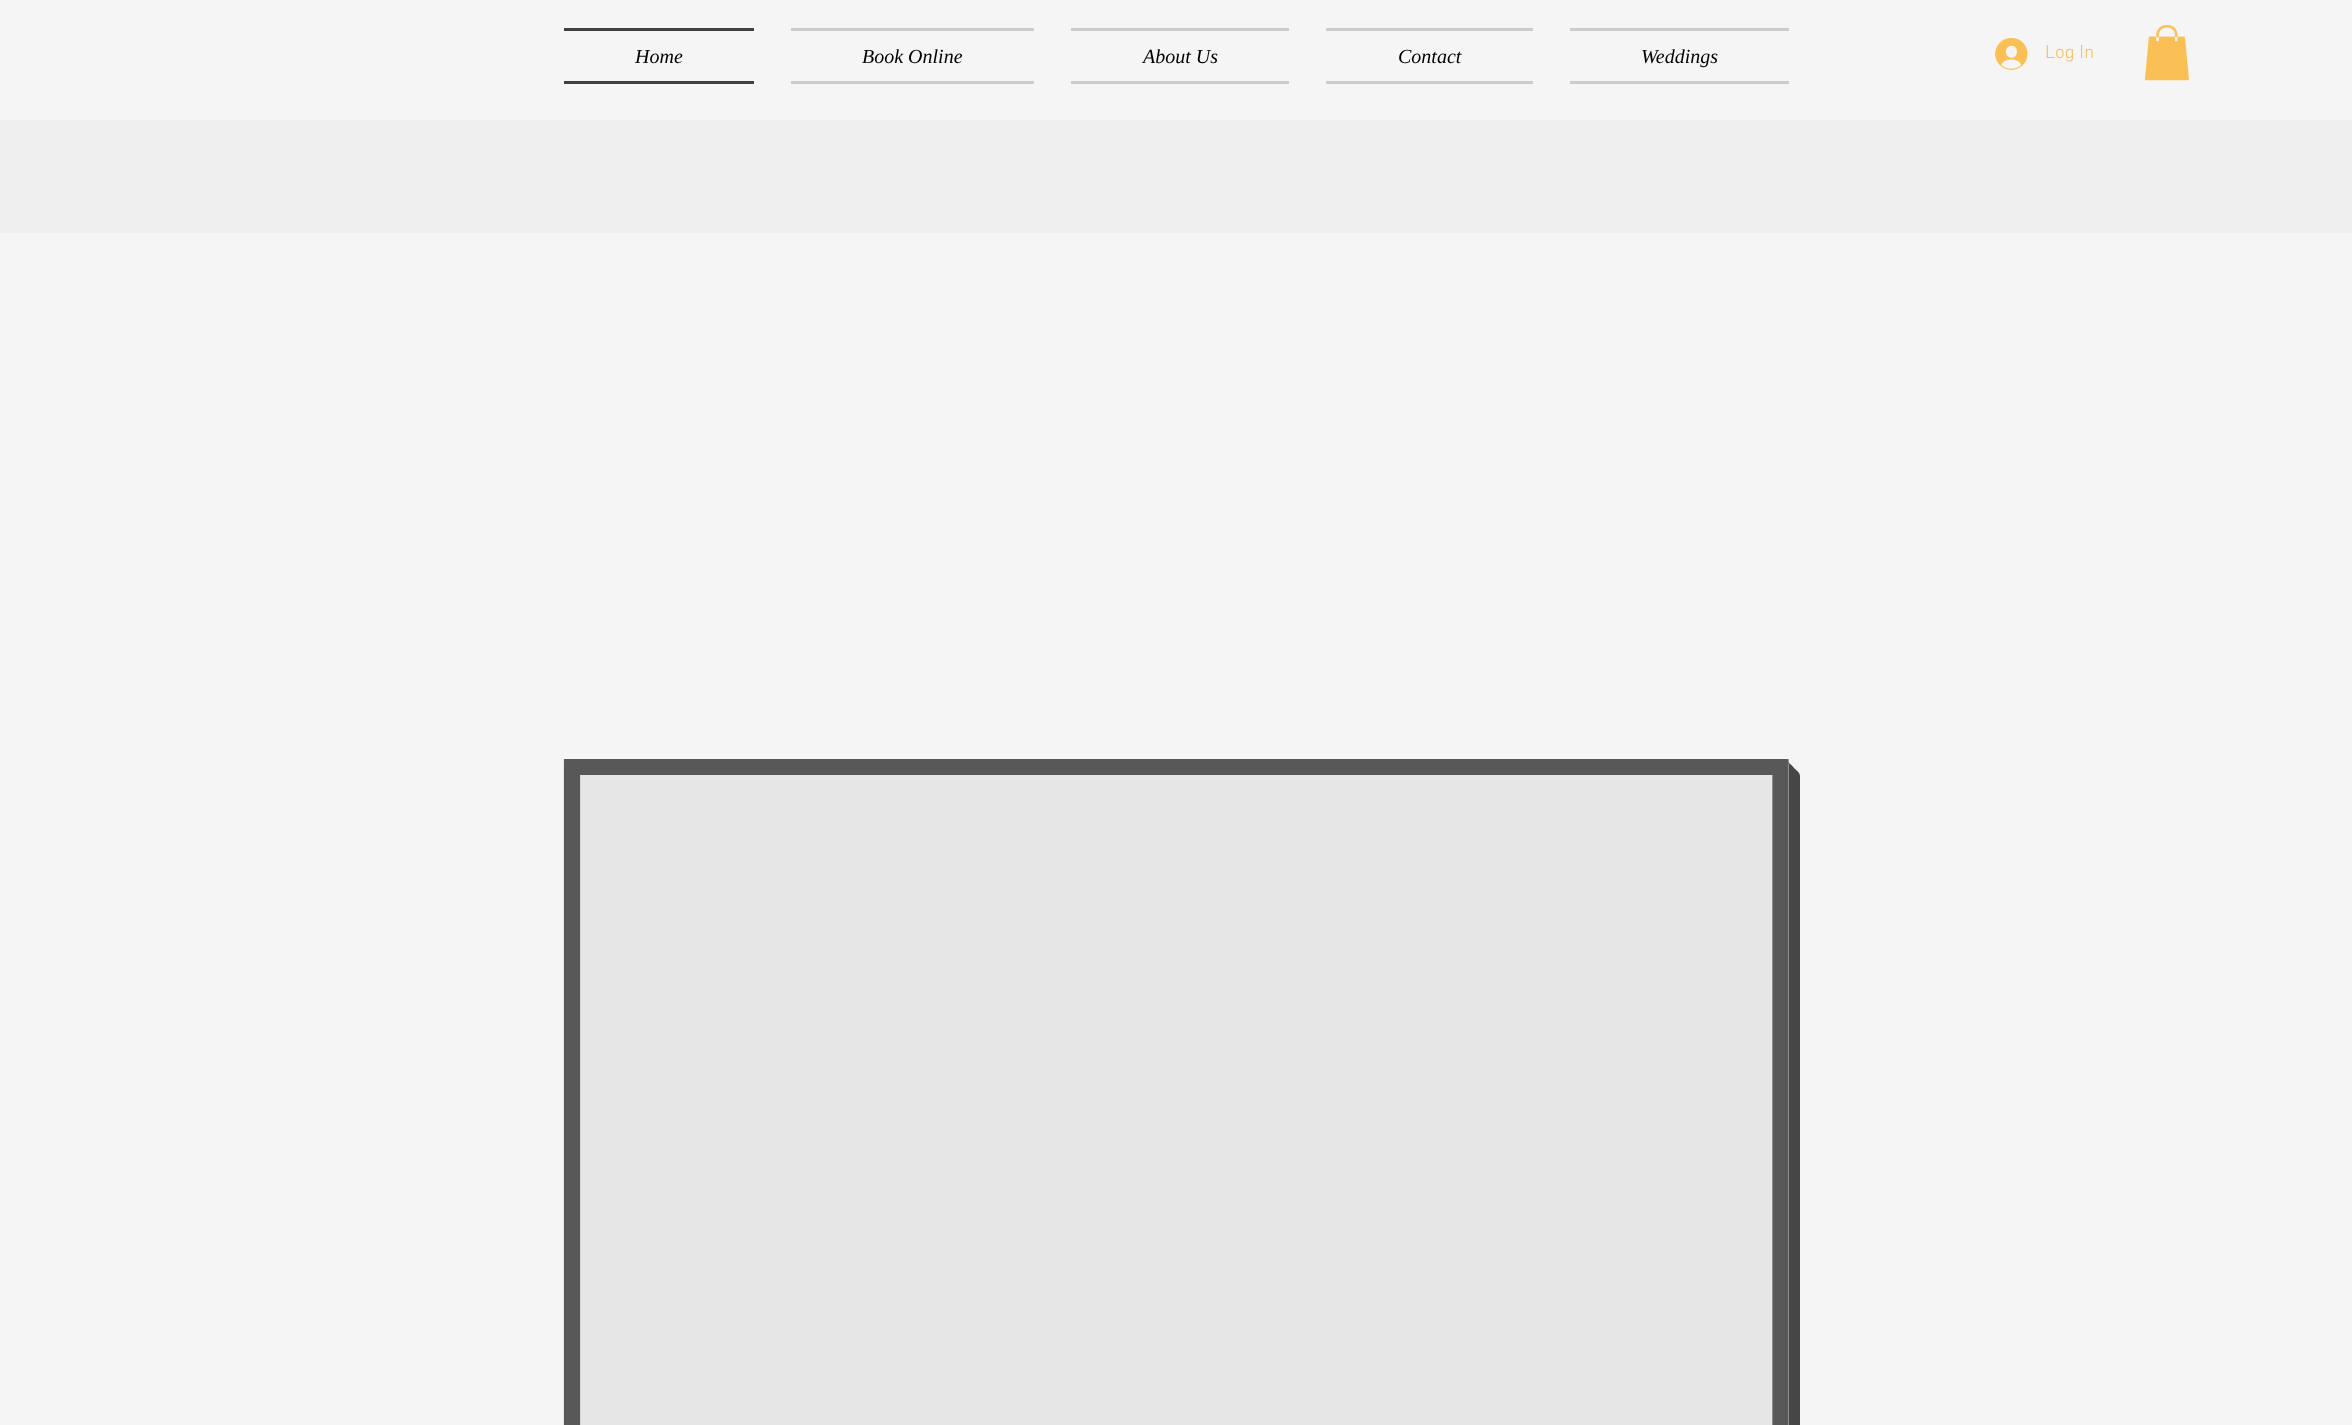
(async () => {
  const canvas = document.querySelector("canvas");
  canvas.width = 2352;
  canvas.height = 1425;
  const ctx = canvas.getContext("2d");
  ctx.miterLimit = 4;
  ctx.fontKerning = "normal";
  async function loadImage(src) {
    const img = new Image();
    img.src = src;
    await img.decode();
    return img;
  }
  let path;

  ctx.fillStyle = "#e6e6e6";
  ctx.fillRect(0, 0, 2352, 1425);
  ctx.save();
  path = new Path2D("M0 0H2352V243H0ZM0 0H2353V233H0Z");
  ctx.clip(path, "evenodd");
  ctx.fillStyle = "rgba(0, 0, 0, 0.7)";
  ctx.filter = "blur(3px)";
  ctx.beginPath();
  ctx.rect(0, 0, 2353, 233);
  ctx.fill();
  ctx.filter = "none";
  ctx.restore();
  for (const [x, y, w, h, color] of [
    [0, 0, 2352, 233, "rgba(255, 255, 255, 0.6)"],
    [564, 28, 190, 3, "#414141"],
    [564, 81, 190, 3, "#414141"],
    [791, 28, 243, 3, "#cccccc"],
    [791, 81, 243, 3, "#cccccc"],
    [1071, 28, 218, 3, "#cccccc"],
    [1071, 81, 218, 3, "#cccccc"],
    [1326, 28, 207, 3, "#cccccc"],
    [1326, 81, 207, 3, "#cccccc"],
    [1570, 28, 219, 3, "#cccccc"],
    [1570, 81, 219, 3, "#cccccc"],
  ]) {
    ctx.fillStyle = color;
    ctx.fillRect(x, y, w, h);
  }
  ctx.drawImage(await loadImage("img/1.png"), 1995, 38, 33, 32);
  ctx.drawImage(await loadImage("img/2.png"), 2144, 25, 45, 56);
  ctx.fillStyle = "#ffffff";
  ctx.fillRect(0, 233, 2352, 1192);
  ctx.fillStyle = "rgba(230, 230, 230, 0.4)";
  ctx.fillRect(0, 120, 2352, 1305);
  ctx.fillStyle = "#464646";
  path = new Path2D("M575 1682V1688C575 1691 578 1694 581 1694H1794C1797 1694 1800 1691 1800 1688V776C1800 773 1797 770 1794 770H1789V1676C1789 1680 1786 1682 1782 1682Z");
  ctx.fill(path);
  path = new Path2D("M573 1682V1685C573 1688 576 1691 579 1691H1792C1795 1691 1798 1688 1798 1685V774C1798 771 1795 768 1792 768H1789V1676C1789 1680 1786 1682 1782 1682Z");
  ctx.fill(path);
  path = new Path2D("M570 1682V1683C570 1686 573 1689 576 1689H1789C1792 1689 1795 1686 1795 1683V771C1795 768 1792 765 1789 765V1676C1789 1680 1786 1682 1782 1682Z");
  ctx.fill(path);
  path = new Path2D("M568 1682C569 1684 572 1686 574 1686H1787C1790 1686 1793 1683 1793 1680V769C1793 766 1791 764 1788 763L1789 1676C1789 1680 1786 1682 1782 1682Z");
  ctx.fill(path);
  path = new Path2D("M566 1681C567 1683 569 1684 571 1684H1784C1787 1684 1790 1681 1790 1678V766C1790 764 1789 762 1787 761C1788 762 1789 763 1789 765V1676C1789 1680 1786 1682 1782 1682H570C568 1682 567 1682 566 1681Z");
  ctx.fill(path);
  ctx.fillStyle = "#e6e6e6";
  ctx.beginPath();
  ctx.roundRect(564, 759, 1225, 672, 6);
  ctx.fill();
  path = new Path2D("M572 767H1780.5V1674.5H572Z");
  ctx.strokeStyle = "rgba(0, 0, 0, 0.62)";
  ctx.lineWidth = 16.2;
  ctx.stroke(path);
  ctx.font = "italic 20px Liberation Serif";
  ctx.fillStyle = "#000000";
  for (const [text, x, y] of [
    ["Home", 635, 63],
    ["Book Online", 862, 63],
    ["About Us", 1143, 63],
    ["Contact", 1398, 63],
    ["Weddings", 1641, 63],
  ]) {
    ctx.fillText(text, x, y);
  }
  ctx.font = "300 19px 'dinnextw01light'";
  ctx.fillStyle = "#fac055";
  ctx.fillText("Log In", 2045, 58);
})();
